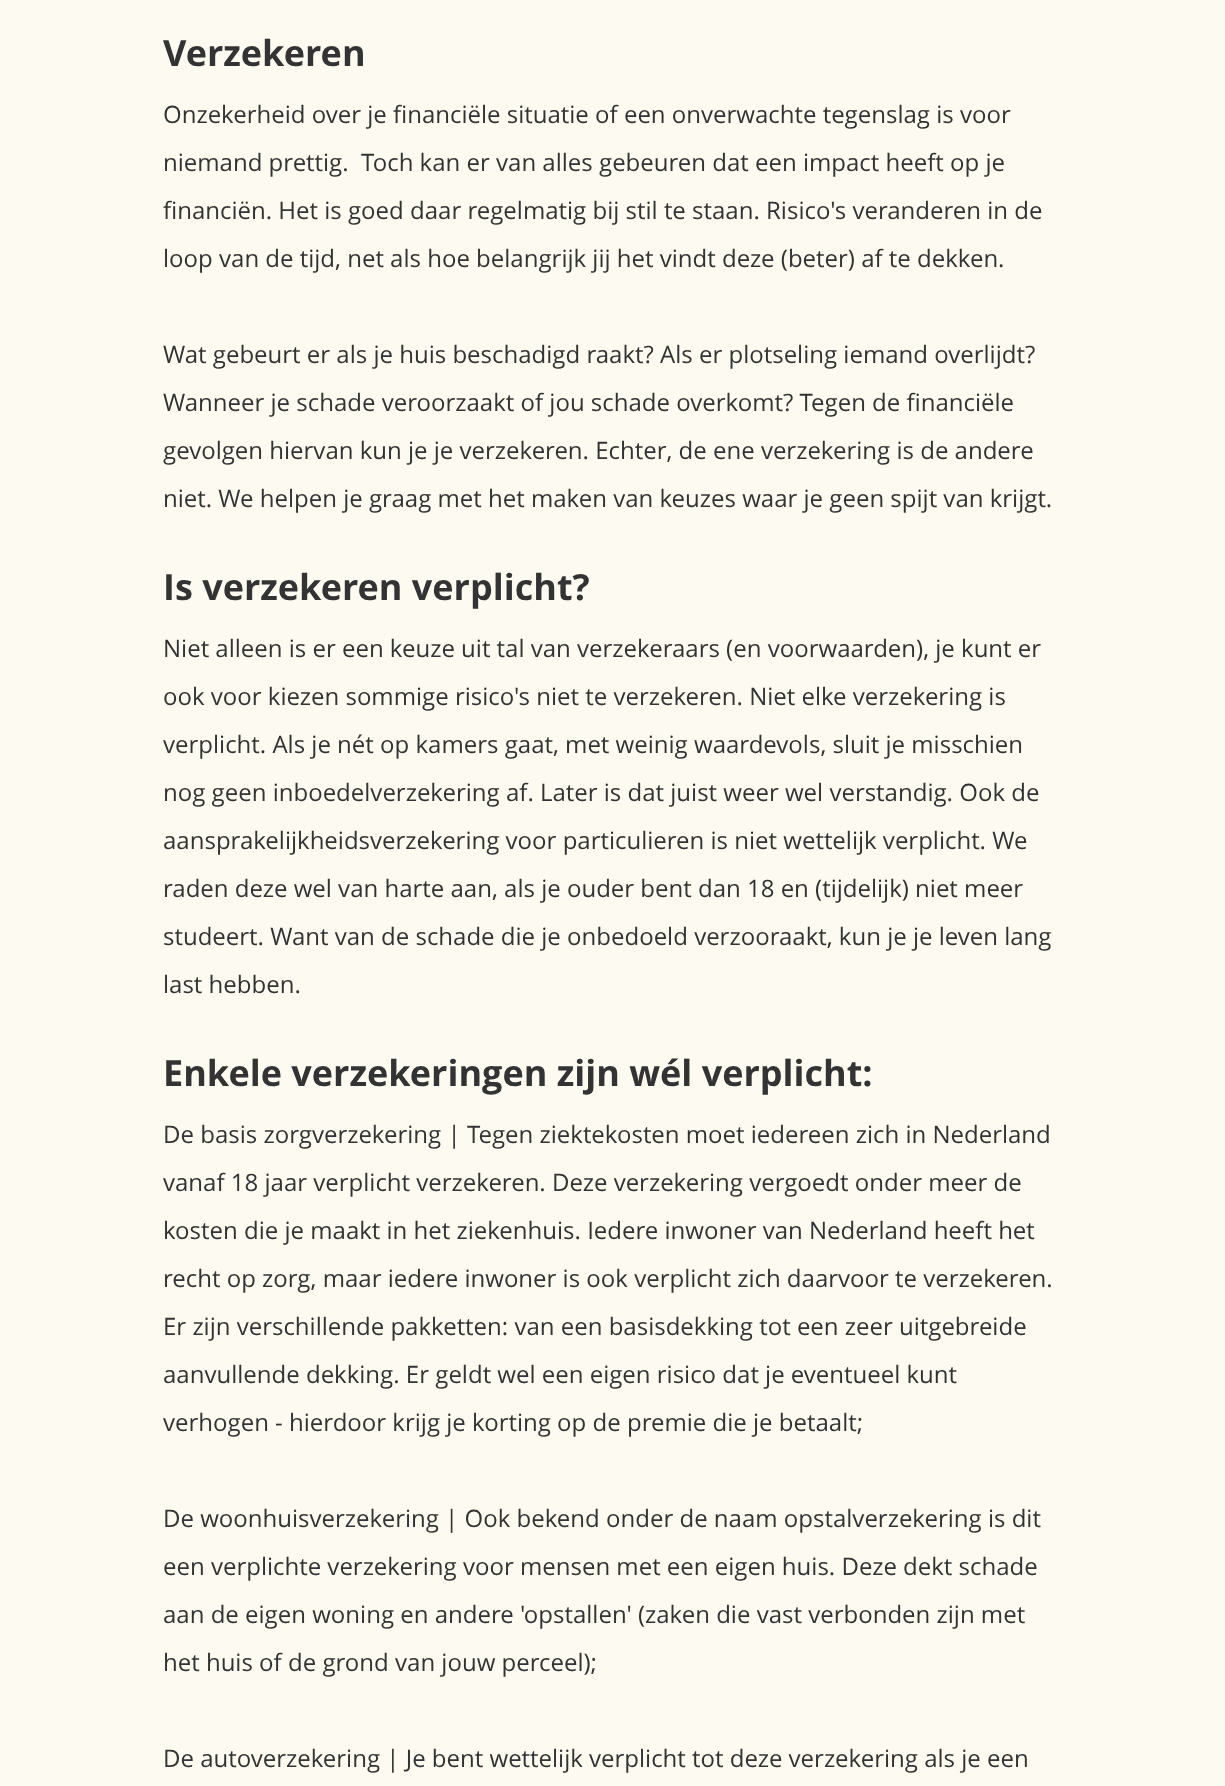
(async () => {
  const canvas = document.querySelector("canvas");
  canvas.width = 1225;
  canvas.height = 1786;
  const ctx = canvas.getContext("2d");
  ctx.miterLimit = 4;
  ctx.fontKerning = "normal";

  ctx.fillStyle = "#fdfbf1";
  ctx.fillRect(0, 0, 1225, 1786);
  ctx.font = "bold 36px Open Sans";
  ctx.fillStyle = "#333333";
  ctx.fillText("Verzekeren", 163, 66);
  ctx.font = "24px Open Sans";
  for (const [text, x, y] of [
    ["Onzekerheid over je financiële situatie of een onverwachte tegenslag is voor", 163, 123],
    ["niemand prettig.  Toch kan er van alles gebeuren dat een impact heeft op je", 163, 171],
    ["financiën. Het is goed daar regelmatig bij stil te staan. Risico's veranderen in de", 163, 219],
    ["loop van de tijd, net als hoe belangrijk jij het vindt deze (beter) af te dekken.", 163, 267],
    ["Wat gebeurt er als je huis beschadigd raakt? Als er plotseling iemand overlijdt?", 163, 363],
    ["Wanneer je schade veroorzaakt of jou schade overkomt? Tegen de financiële", 163, 411],
    ["gevolgen hiervan kun je je verzekeren. Echter, de ene verzekering is de andere", 163, 459],
    ["niet. We helpen je graag met het maken van keuzes waar je geen spijt van krijgt.", 163, 507],
  ]) {
    ctx.fillText(text, x, y);
  }
  ctx.font = "bold 36px Open Sans";
  ctx.fillText("Is verzekeren verplicht?", 163, 600);
  ctx.font = "24px Open Sans";
  for (const [text, x, y] of [
    ["Niet alleen is er een keuze uit tal van verzekeraars (en voorwaarden), je kunt er", 163, 657],
    ["ook voor kiezen sommige risico's niet te verzekeren. Niet elke verzekering is", 163, 705],
    ["verplicht. Als je nét op kamers gaat, met weinig waardevols, sluit je misschien", 163, 753],
    ["nog geen inboedelverzekering af. Later is dat juist weer wel verstandig. Ook de", 163, 801],
    ["aansprakelijkheidsverzekering voor particulieren is niet wettelijk verplicht. We", 163, 849],
    ["raden deze wel van harte aan, als je ouder bent dan 18 en (tijdelijk) niet meer", 163, 897],
    ["studeert. Want van de schade die je onbedoeld verzooraakt, kun je je leven lang", 163, 945],
    ["last hebben.", 163, 993],
  ]) {
    ctx.fillText(text, x, y);
  }
  ctx.font = "bold 36px Open Sans";
  ctx.fillText("Enkele verzekeringen zijn wél verplicht:", 163, 1086);
  ctx.font = "24px Open Sans";
  for (const [text, x, y] of [
    ["De basis zorgverzekering | Tegen ziektekosten moet iedereen zich in Nederland", 163, 1143],
    ["vanaf 18 jaar verplicht verzekeren. Deze verzekering vergoedt onder meer de", 163, 1191],
    ["kosten die je maakt in het ziekenhuis. Iedere inwoner van Nederland heeft het", 163, 1239],
    ["recht op zorg, maar iedere inwoner is ook verplicht zich daarvoor te verzekeren.", 163, 1287],
    ["Er zijn verschillende pakketten: van een basisdekking tot een zeer uitgebreide", 163, 1335],
    ["aanvullende dekking. Er geldt wel een eigen risico dat je eventueel kunt", 163, 1383],
    ["verhogen - hierdoor krijg je korting op de premie die je betaalt;", 163, 1431],
    ["De woonhuisverzekering | Ook bekend onder de naam opstalverzekering is dit", 163, 1527],
    ["een verplichte verzekering voor mensen met een eigen huis. Deze dekt schade", 163, 1575],
    ["aan de eigen woning en andere 'opstallen' (zaken die vast verbonden zijn met", 163, 1623],
    ["het huis of de grond van jouw perceel);", 163, 1671],
    ["De autoverzekering | Je bent wettelijk verplicht tot deze verzekering als je een", 163, 1767],
  ]) {
    ctx.fillText(text, x, y);
  }
})();
